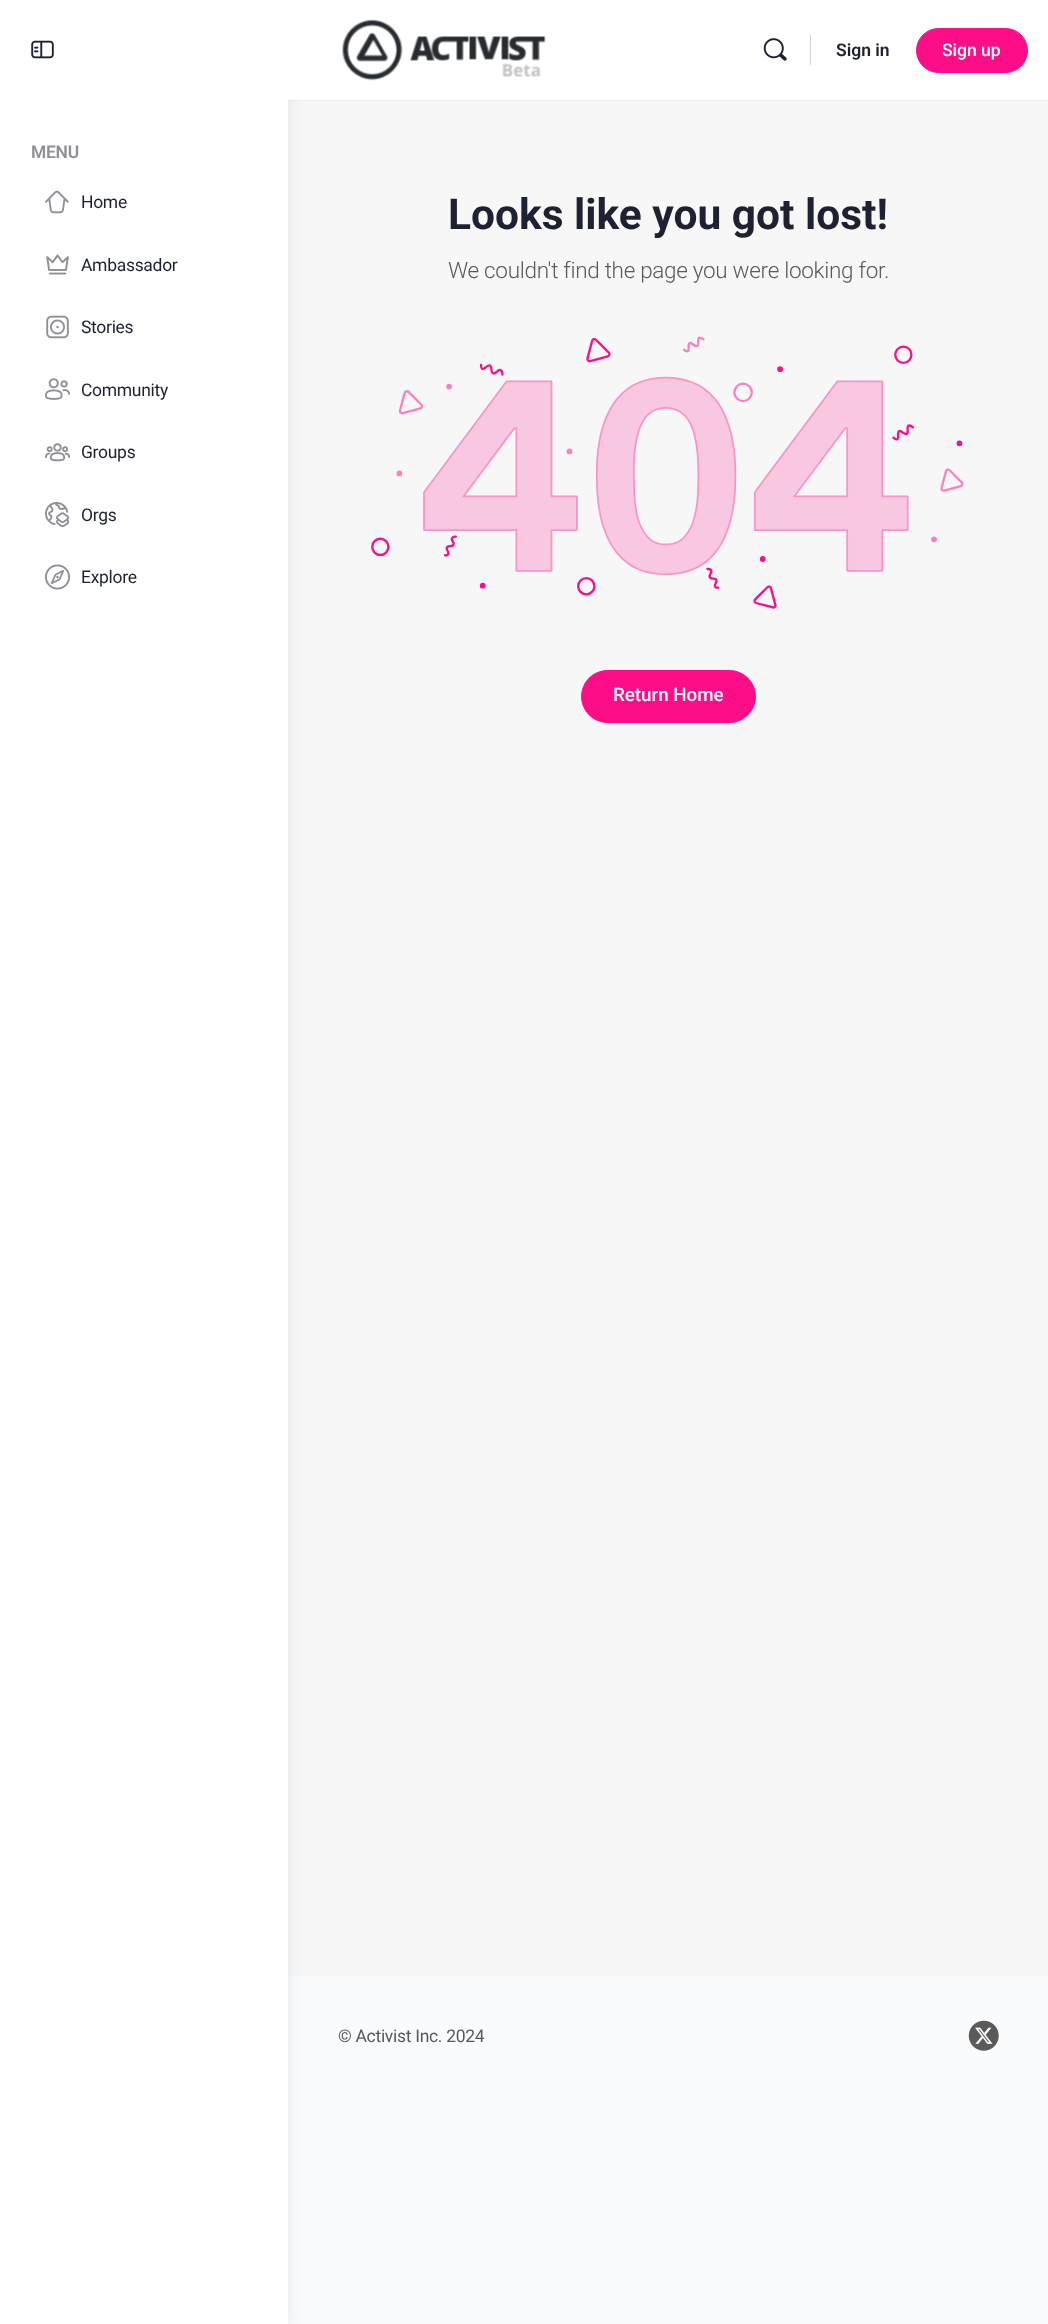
(async () => {
  const canvas = document.querySelector("canvas");
  canvas.width = 1048;
  canvas.height = 2324;
  const ctx = canvas.getContext("2d");
  ctx.miterLimit = 4;
  ctx.fontKerning = "normal";
  async function loadImage(src) {
    const img = new Image();
    img.src = src;
    await img.decode();
    return img;
  }
  let path;

  ctx.fillStyle = "#f7f7f7";
  ctx.fillRect(0, 0, 1048, 2324);
  ctx.fillStyle = "#fafbfd";
  ctx.fillRect(288, 1976, 760, 348);
  ctx.fillStyle = "rgba(18, 43, 70, 0.1)";
  ctx.filter = "blur(8px)";
  ctx.beginPath();
  ctx.rect(0, 4, 288, 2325);
  ctx.fill();
  ctx.filter = "none";
  ctx.fillStyle = "#ffffff";
  ctx.fillRect(0, 0, 288, 2324);
  ctx.drawImage(await loadImage("img/1.png"), 31, 40, 23, 19);
  ctx.drawImage(await loadImage("img/2.png"), 45, 190, 24, 24);
  ctx.drawImage(await loadImage("img/3.png"), 46, 254, 23, 21);
  ctx.drawImage(await loadImage("img/4.png"), 46, 315, 23, 24);
  ctx.drawImage(await loadImage("img/5.png"), 45, 378, 25, 22);
  ctx.drawImage(await loadImage("img/6.png"), 45, 443, 25, 19);
  ctx.drawImage(await loadImage("img/7.png"), 45, 502, 25, 25);
  ctx.drawImage(await loadImage("img/8.png"), 45, 564, 25, 26);
  ctx.fillStyle = "rgba(139, 141, 157, 0.05)";
  path = new Path2D("M288 100V101H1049V1V100Z");
  ctx.fill(path);
  ctx.fillStyle = "#ffffff";
  ctx.fillRect(288, 0, 760, 100);
  ctx.drawImage(await loadImage("img/9.png"), 342, 19, 204, 62);
  ctx.drawImage(await loadImage("img/10.png"), 763, 38, 24, 23);
  ctx.fillStyle = "#d2d3d6";
  ctx.fillRect(810, 35, 1, 30);
  ctx.fillStyle = "#fe0d89";
  ctx.beginPath();
  ctx.roundRect(916.5, 28.5, 111, 44, 22);
  ctx.fill();
  ctx.strokeStyle = "#fe0d89";
  ctx.stroke();
  ctx.drawImage(await loadImage("img/11.png"), 371, 336, 593, 273);
  ctx.beginPath();
  ctx.roundRect(581.5, 670.5, 174, 52, 26);
  ctx.fill();
  ctx.stroke();
  ctx.drawImage(await loadImage("img/12.png"), 968, 2020, 31, 31);
  ctx.letterSpacing = "-0.3px";
  ctx.font = "600 17.5px Roboto";
  ctx.fillStyle = "#8f9099";
  ctx.fillText("MENU", 31, 158);
  ctx.font = "17.5px Roboto";
  ctx.fillStyle = "#1e2132";
  for (const [text, x, y] of [
    ["Home", 81, 208],
    ["Ambassador", 81, 271],
    ["Stories", 81, 333],
    ["Community", 81, 396],
    ["Groups", 81, 458],
    ["Orgs", 81, 521],
    ["Explore", 81, 583],
  ]) {
    ctx.fillText(text, x, y);
  }
  ctx.letterSpacing = "0px";
  ctx.font = "600 17.5px Roboto";
  ctx.fillText("Sign in", 836, 56);
  ctx.font = "500 17.5px Roboto";
  ctx.fillStyle = "#ffffff";
  ctx.fillText("Sign up", 942, 56);
  ctx.font = "bold 42.5px Roboto";
  ctx.fillStyle = "#1e2132";
  ctx.fillText("Looks like you got lost!", 448, 229);
  ctx.letterSpacing = "-0.3px";
  ctx.font = "300 22.5px Roboto";
  ctx.fillStyle = "#5a5a5a";
  ctx.fillText("We couldn't find the page you were looking for.", 448, 278);
  ctx.letterSpacing = "0px";
  ctx.font = "500 18.75px Roboto";
  ctx.fillStyle = "#ffffff";
  ctx.fillText("Return Home", 613, 701);
  ctx.letterSpacing = "-0.3px";
  ctx.font = "17.5px Roboto";
  ctx.fillStyle = "#5a5a5a";
  ctx.fillText("© Activist Inc. 2024", 338, 2042);
})();
